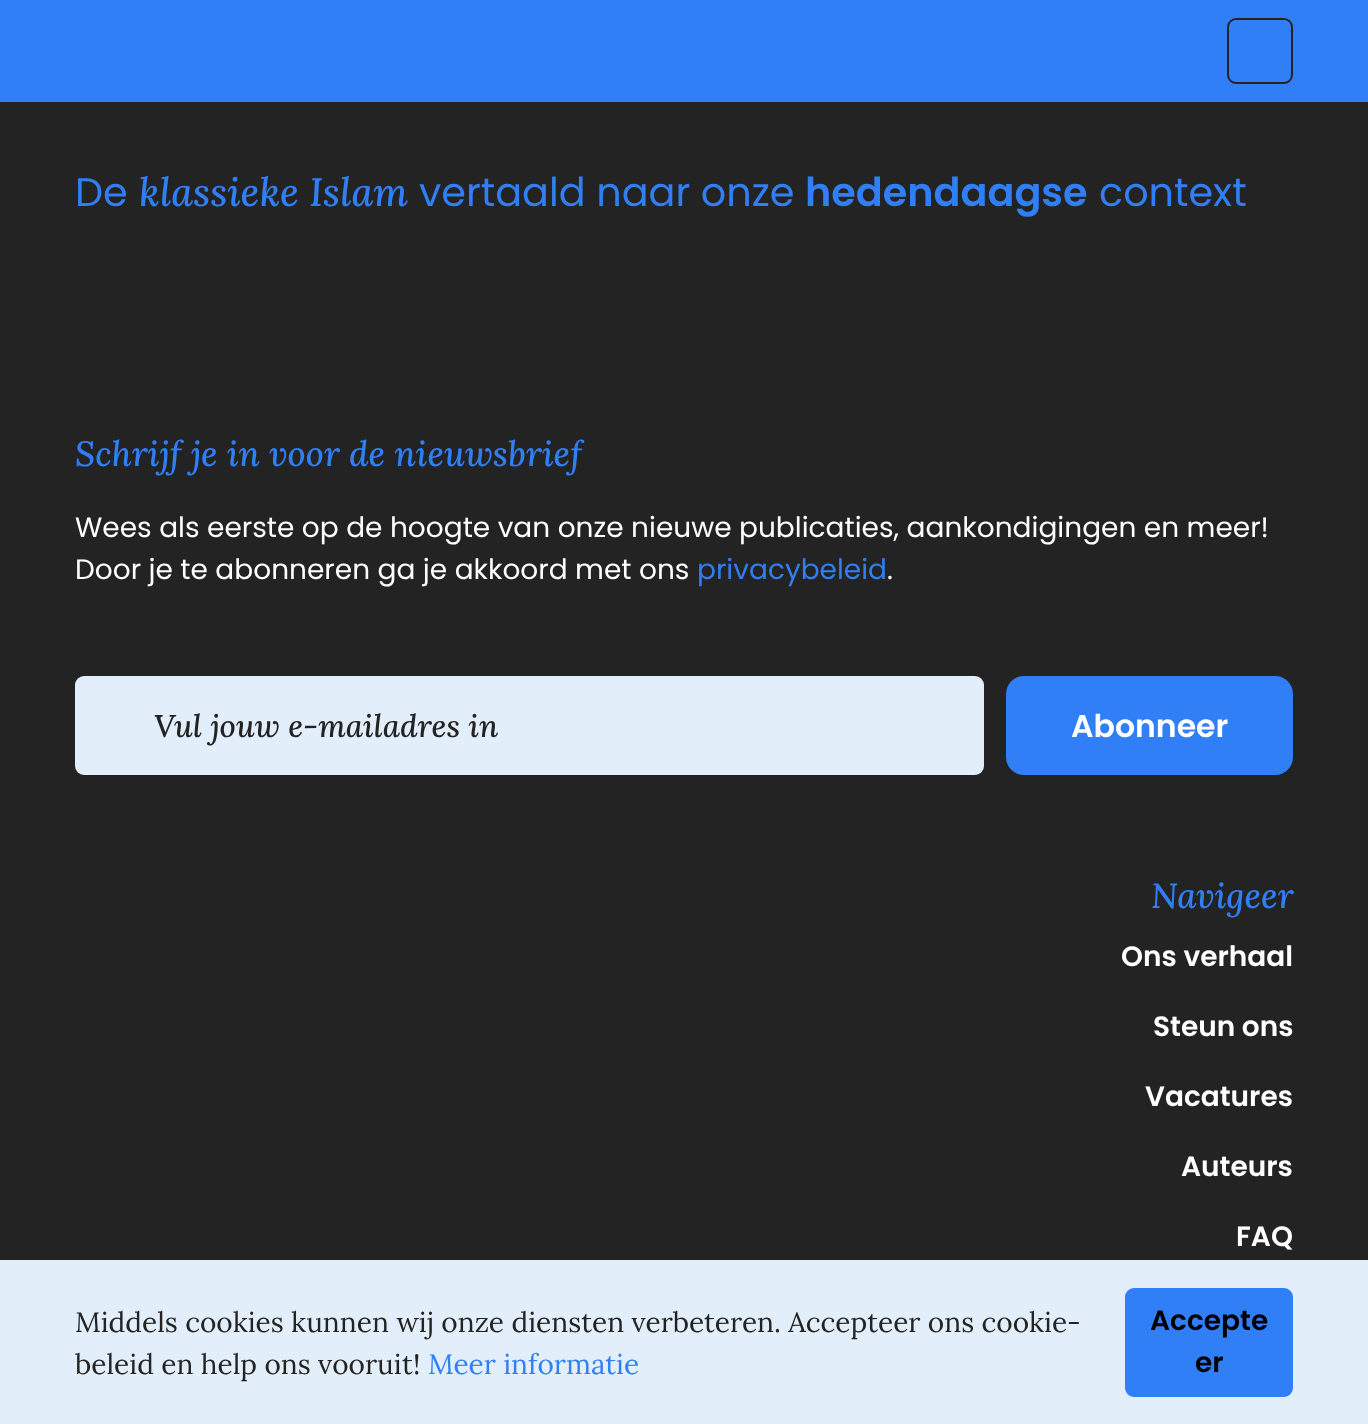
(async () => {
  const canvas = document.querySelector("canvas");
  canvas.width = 1368;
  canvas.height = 1424;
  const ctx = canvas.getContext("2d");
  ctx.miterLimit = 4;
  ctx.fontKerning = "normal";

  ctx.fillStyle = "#232323";
  ctx.fillRect(0, 0, 1368, 1424);
  ctx.fillStyle = "#307ff6";
  ctx.fillRect(0, 0, 1368, 102);
  ctx.beginPath();
  ctx.roundRect(1228, 19, 64, 64, 8);
  ctx.strokeStyle = "#232323";
  ctx.lineWidth = 2;
  ctx.stroke();
  ctx.fillStyle = "#e2eef9";
  ctx.beginPath();
  ctx.roundRect(75, 676, 909, 99, 9);
  ctx.fill();
  ctx.fillStyle = "#307ff6";
  ctx.beginPath();
  ctx.roundRect(1006, 676, 287, 99, 18);
  ctx.fill();
  ctx.fillStyle = "#e2eef9";
  ctx.fillRect(0, 1260, 1368, 164);
  ctx.fillStyle = "#307ff6";
  ctx.beginPath();
  ctx.roundRect(1126, 1289, 166, 107, 8);
  ctx.fill();
  ctx.strokeStyle = "#307ff6";
  ctx.stroke();
  ctx.font = "39.75px Poppins";
  ctx.fillText("De", 75, 206);
  ctx.font = "italic 500 39.75px Lora";
  ctx.fillText("klassieke Islam", 139, 206);
  ctx.font = "39.75px Poppins";
  ctx.fillText("vertaald naar onze", 419, 206);
  ctx.font = "600 39.75px Poppins";
  ctx.fillText("hedendaagse", 805, 206);
  ctx.font = "39.75px Poppins";
  ctx.fillText("context", 1099, 206);
  ctx.font = "italic 500 35px Lora";
  ctx.fillText("Schrijf je in voor de nieuwsbrief", 75, 466);
  ctx.font = "28px Poppins";
  ctx.fillStyle = "#ffffff";
  ctx.fillText("Wees als eerste op de hoogte van onze nieuwe publicaties, aankondigingen en meer!", 75, 537);
  ctx.fillText("Door je te abonneren ga je akkoord met ons", 75, 579);
  ctx.fillStyle = "#307ff6";
  ctx.fillText("privacybeleid", 697, 579);
  ctx.fillStyle = "#ffffff";
  ctx.fillText(".", 887, 579);
  ctx.font = "italic 500 31.5px Lora";
  ctx.fillStyle = "#232323";
  ctx.fillText("Vul jouw e-mailadres in", 154, 737);
  ctx.font = "600 31.5px Poppins";
  ctx.fillStyle = "#ffffff";
  ctx.fillText("Abonneer", 1071, 737);
  ctx.font = "italic 500 35px Lora";
  ctx.fillStyle = "#307ff6";
  ctx.fillText("Navigeer", 1151, 908);
  ctx.font = "600 28px Poppins";
  ctx.fillStyle = "#ffffff";
  for (const [text, x, y] of [
    ["Ons verhaal", 1121, 966],
    ["Steun ons", 1153, 1036],
    ["Vacatures", 1145, 1106],
    ["Auteurs", 1181, 1176],
    ["FAQ", 1236, 1246],
  ]) {
    ctx.fillText(text, x, y);
  }
  ctx.font = "28px Lora";
  ctx.fillStyle = "#232323";
  ctx.fillText("Middels cookies kunnen wij onze diensten verbeteren. Accepteer ons cookie-", 75, 1332);
  ctx.fillText("beleid en help ons vooruit!", 75, 1374);
  ctx.fillStyle = "#307ff6";
  ctx.fillText("Meer informatie", 428, 1374);
  ctx.font = "600 28px Poppins";
  ctx.fillStyle = "#000000";
  ctx.fillText("Accepte", 1150, 1330);
  ctx.fillText("er", 1195, 1372);
})();
